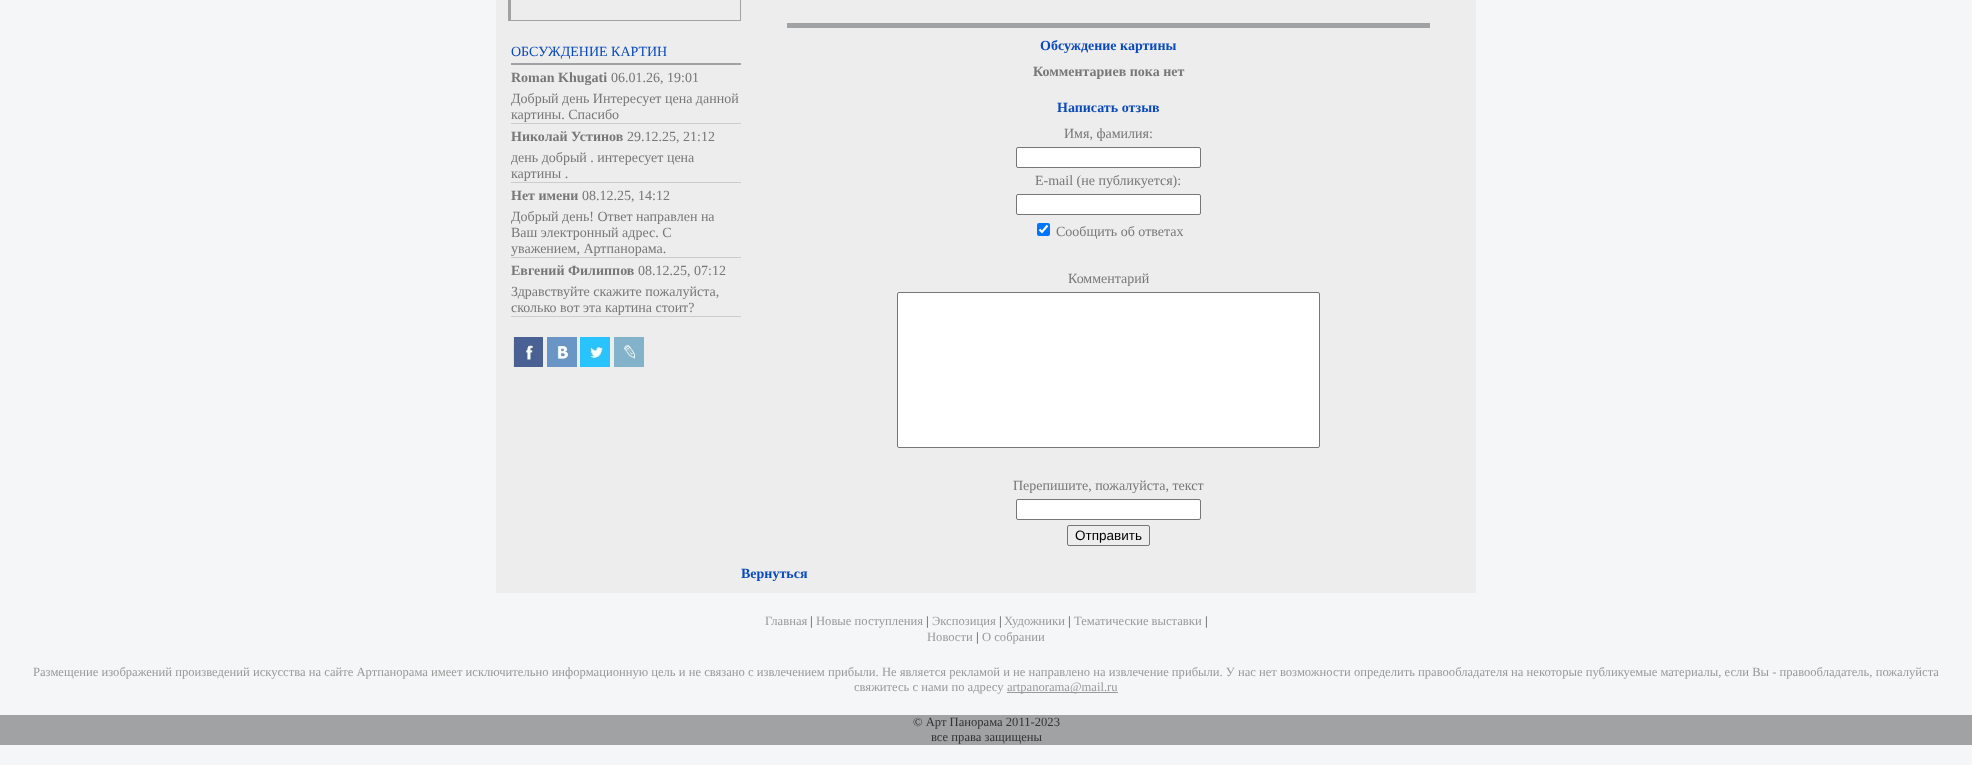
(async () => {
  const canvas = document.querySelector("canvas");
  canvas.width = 1972;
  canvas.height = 765;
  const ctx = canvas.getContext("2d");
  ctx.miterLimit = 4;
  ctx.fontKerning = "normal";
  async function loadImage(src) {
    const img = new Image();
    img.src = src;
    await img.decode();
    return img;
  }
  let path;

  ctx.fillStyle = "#f5f6f7";
  ctx.fillRect(0, 0, 1972, 765);
  for (const [x, y, w, h, color] of [
    [496, 0, 980, 593, "#ededed"],
    [740, 0, 1, 21, "#a0a2a4"],
    [508, 20, 233, 1, "#a0a2a4"],
    [508, 0, 3, 21, "#a0a2a4"],
    [511, 63, 230, 2, "#a0a2a4"],
    [511, 123, 230, 1, "#cccccc"],
    [511, 182, 230, 1, "#cccccc"],
    [511, 257, 230, 1, "#cccccc"],
    [511, 316, 230, 1, "#cccccc"],
  ]) {
    ctx.fillStyle = color;
    ctx.fillRect(x, y, w, h);
  }
  ctx.drawImage(await loadImage("img/1.png"), 513, 337, 30, 30);
  ctx.drawImage(await loadImage("img/2.png"), 547, 337, 30, 30);
  ctx.drawImage(await loadImage("img/3.png"), 580, 337, 30, 30);
  ctx.drawImage(await loadImage("img/4.png"), 614, 337, 30, 30);
  ctx.fillStyle = "#a0a2a4";
  ctx.fillRect(787, 23, 643, 5);
  ctx.fillStyle = "#ffffff";
  ctx.beginPath();
  ctx.roundRect(1016.5, 147.5, 184, 20, 1.5);
  ctx.fill();
  ctx.strokeStyle = "#767676";
  ctx.stroke();
  ctx.beginPath();
  ctx.roundRect(1016.5, 194.5, 184, 20, 1.5);
  ctx.fill();
  ctx.stroke();
  ctx.fillStyle = "#0075ff";
  ctx.beginPath();
  ctx.roundRect(1037, 223, 13, 13, 2);
  ctx.fill();
  path = new Path2D("M1039.5 229.5L1042 232L1047.5 225.5");
  ctx.strokeStyle = "#ffffff";
  ctx.lineWidth = 2.1;
  ctx.stroke(path);
  ctx.fillStyle = "#ffffff";
  ctx.beginPath();
  ctx.roundRect(897.5, 292.5, 422, 155, 1.5);
  ctx.fill();
  ctx.strokeStyle = "#767676";
  ctx.lineWidth = 1;
  ctx.stroke();
  ctx.beginPath();
  ctx.roundRect(1016.5, 499.5, 184, 20, 1.5);
  ctx.fill();
  ctx.stroke();
  ctx.beginPath();
  ctx.roundRect(1067.5, 525.5, 82, 20, 1.5);
  ctx.stroke();
  ctx.fillStyle = "#999999";
  ctx.fillRect(1007, 692, 111, 1);
  ctx.fillStyle = "#a0a2a4";
  ctx.fillRect(0, 715, 1972, 30);
  ctx.font = "14px Liberation Serif";
  ctx.fillStyle = "#0a4aba";
  ctx.fillText("ОБСУЖДЕНИЕ КАРТИН", 511, 56);
  ctx.font = "bold 14px Liberation Serif";
  ctx.fillStyle = "#777777";
  ctx.fillText("Roman Khugati", 511, 82);
  ctx.font = "14px Liberation Serif";
  for (const [text, x, y] of [
    ["06.01.26, 19:01", 611, 82],
    ["Добрый день Интересует цена данной", 511, 103],
    ["картины. Спасибо", 511, 119],
  ]) {
    ctx.fillText(text, x, y);
  }
  ctx.font = "bold 14px Liberation Serif";
  ctx.fillText("Николай Устинов", 511, 141);
  ctx.font = "14px Liberation Serif";
  for (const [text, x, y] of [
    ["29.12.25, 21:12", 627, 141],
    ["день добрый . интересует цена", 511, 162],
    ["картины .", 511, 178],
  ]) {
    ctx.fillText(text, x, y);
  }
  ctx.font = "bold 14px Liberation Serif";
  ctx.fillText("Нет имени", 511, 200);
  ctx.font = "14px Liberation Serif";
  for (const [text, x, y] of [
    ["08.12.25, 14:12", 582, 200],
    ["Добрый день! Ответ направлен на", 511, 221],
    ["Ваш электронный адрес. С", 511, 237],
    ["уважением, Артпанорама.", 511, 253],
  ]) {
    ctx.fillText(text, x, y);
  }
  ctx.font = "bold 14px Liberation Serif";
  ctx.fillText("Евгений Филиппов", 511, 275);
  ctx.font = "14px Liberation Serif";
  for (const [text, x, y] of [
    ["08.12.25, 07:12", 638, 275],
    ["Здравствуйте скажите пожалуйста,", 511, 296],
    ["сколько вот эта картина стоит?", 511, 312],
  ]) {
    ctx.fillText(text, x, y);
  }
  ctx.font = "bold 14px Liberation Serif";
  ctx.fillStyle = "#0a4aba";
  ctx.fillText("Обсуждение картины", 1040, 50);
  ctx.fillStyle = "#777777";
  ctx.fillText("Комментариев пока нет", 1033, 76);
  ctx.fillStyle = "#0a4aba";
  ctx.fillText("Написать отзыв", 1057, 112);
  ctx.font = "14px Liberation Serif";
  ctx.fillStyle = "#777777";
  for (const [text, x, y] of [
    ["Имя, фамилия:", 1064, 138],
    ["E-mail (не публикуется):", 1035, 185],
    ["Сообщить об ответах", 1056, 236],
    ["Комментарий", 1068, 283],
    ["Перепишите, пожалуйста, текст", 1013, 490],
  ]) {
    ctx.fillText(text, x, y);
  }
  ctx.font = "13.5px Liberation Sans";
  ctx.fillStyle = "#000000";
  ctx.fillText("Отправить", 1075, 540);
  ctx.font = "bold 14px Liberation Serif";
  ctx.fillStyle = "#0a4aba";
  ctx.fillText("Вернуться", 741, 578);
  ctx.font = "12.6px Liberation Serif";
  ctx.fillStyle = "#999999";
  ctx.fillText("Главная", 765, 625);
  ctx.fillStyle = "#333333";
  ctx.fillText("|", 810, 625);
  ctx.fillStyle = "#999999";
  ctx.fillText("Новые поступления", 816, 625);
  ctx.fillStyle = "#333333";
  ctx.fillText("|", 926, 625);
  ctx.fillStyle = "#999999";
  ctx.fillText("Экспозиция", 932, 625);
  ctx.fillStyle = "#333333";
  ctx.fillText("|", 999, 625);
  ctx.fillStyle = "#999999";
  ctx.fillText("Художники", 1004, 625);
  ctx.fillStyle = "#333333";
  ctx.fillText("|", 1068, 625);
  ctx.fillStyle = "#999999";
  ctx.fillText("Тематические выставки", 1074, 625);
  ctx.fillStyle = "#333333";
  ctx.fillText("|", 1205, 625);
  ctx.fillStyle = "#999999";
  ctx.fillText("Новости", 927, 641);
  ctx.fillStyle = "#333333";
  ctx.fillText("|", 976, 641);
  ctx.fillStyle = "#999999";
  for (const [text, x, y] of [
    ["О собрании", 982, 641],
    ["Размещение изображений произведений искусства на сайте Артпанорама имеет исключительно информационную цель и не связано с извлечением прибыли. Не является рекламой и не направлено на извлечение прибыли. У нас нет возможности определить правообладателя на некоторые публикуемые материалы, если Вы - правообладатель, пожалуйста", 33, 676],
    ["свяжитесь с нами по адресу", 854, 691],
    ["artpanorama@mail.ru", 1007, 691],
  ]) {
    ctx.fillText(text, x, y);
  }
  ctx.fillStyle = "#333333";
  ctx.fillText("© Арт Панорама 2011-2023", 913, 726);
  ctx.fillText("все права защищены", 931, 741);
})();
